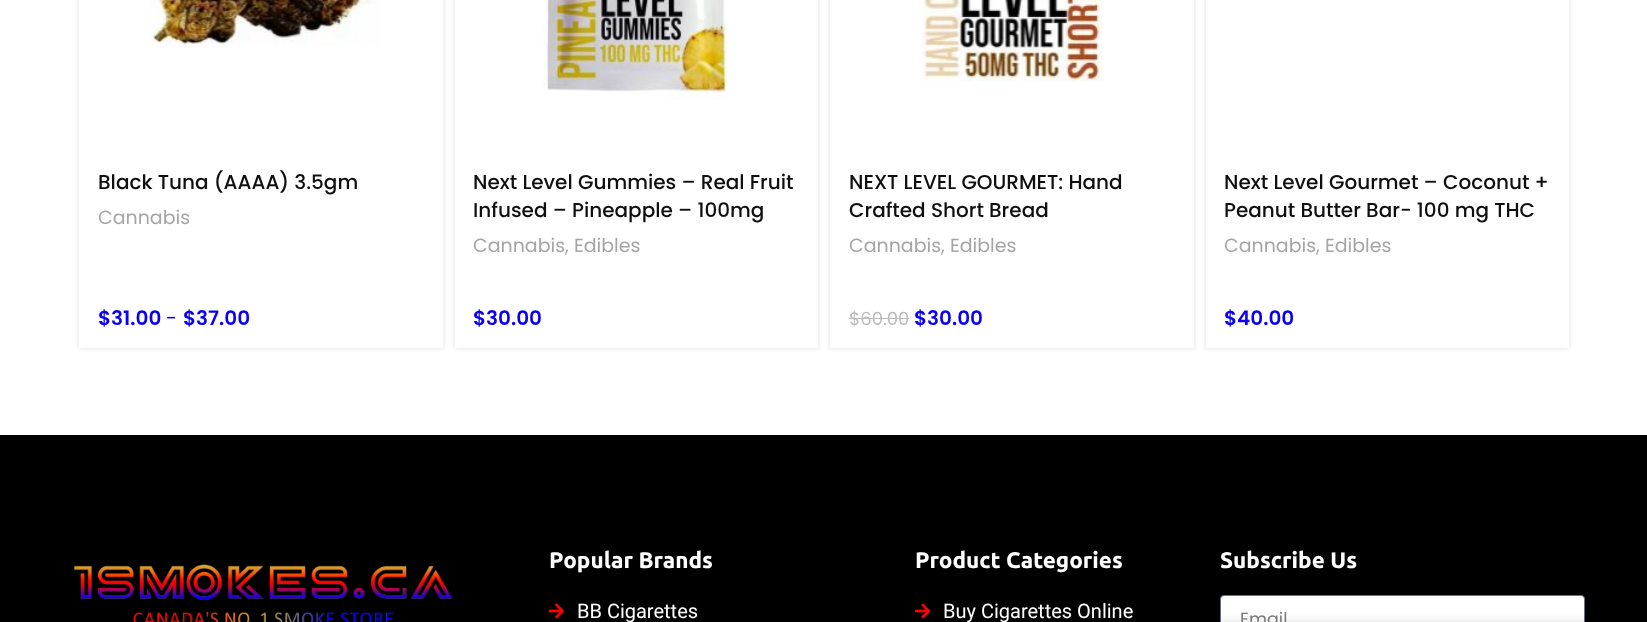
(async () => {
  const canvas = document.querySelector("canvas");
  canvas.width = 1647;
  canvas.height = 622;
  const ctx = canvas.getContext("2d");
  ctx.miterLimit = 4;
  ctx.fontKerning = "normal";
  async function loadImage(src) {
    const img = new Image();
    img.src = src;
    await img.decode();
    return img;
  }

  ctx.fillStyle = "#ffffff";
  ctx.fillRect(0, 0, 1647, 622);
  ctx.fillStyle = "rgba(0, 0, 0, 0.12)";
  ctx.filter = "blur(2.5px)";
  ctx.beginPath();
  ctx.rect(79, -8, 364, 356);
  ctx.fill();
  ctx.filter = "none";
  ctx.fillStyle = "#ffffff";
  ctx.fillRect(79, 0, 364, 348);
  ctx.drawImage(await loadImage("img/1.png"), 149, 0, 231, 47);
  ctx.fillStyle = "rgba(0, 0, 0, 0.12)";
  ctx.filter = "blur(2.5px)";
  ctx.beginPath();
  ctx.rect(455, -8, 363, 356);
  ctx.fill();
  ctx.filter = "none";
  ctx.fillStyle = "#ffffff";
  ctx.fillRect(455, 0, 363, 348);
  ctx.drawImage(await loadImage("img/2.png"), 543, 0, 184, 100);
  ctx.fillStyle = "rgba(0, 0, 0, 0.12)";
  ctx.filter = "blur(2.5px)";
  ctx.beginPath();
  ctx.rect(830, -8, 364, 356);
  ctx.fill();
  ctx.filter = "none";
  ctx.fillStyle = "#ffffff";
  ctx.fillRect(830, 0, 364, 348);
  ctx.drawImage(await loadImage("img/3.png"), 922, 0, 181, 82);
  ctx.fillStyle = "#bbbbbb";
  ctx.fillRect(849, 318, 60, 1);
  ctx.fillStyle = "rgba(0, 0, 0, 0.12)";
  ctx.filter = "blur(2.5px)";
  ctx.beginPath();
  ctx.rect(1206, -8, 363, 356);
  ctx.fill();
  ctx.filter = "none";
  ctx.fillStyle = "#ffffff";
  ctx.fillRect(1206, 0, 363, 348);
  ctx.fillStyle = "#000000";
  ctx.fillRect(0, 435, 1647, 187);
  ctx.drawImage(await loadImage("img/4.png"), 74, 564, 379, 58);
  ctx.drawImage(await loadImage("img/5.png"), 548, 603, 16, 16);
  ctx.drawImage(await loadImage("img/6.png"), 915, 603, 16, 16);
  ctx.fillStyle = "#ffffff";
  ctx.beginPath();
  ctx.roundRect(1220.5, 595.5, 364, 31, 3.5);
  ctx.fill();
  ctx.strokeStyle = "#69727d";
  ctx.stroke();
  ctx.fillStyle = "rgba(0, 0, 0, 0.14)";
  ctx.filter = "blur(5.5px)";
  ctx.beginPath();
  ctx.rect(0, 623, 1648, 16);
  ctx.fill();
  ctx.filter = "none";
  ctx.font = "500 20px Poppins";
  ctx.fillStyle = "#0f0f0f";
  ctx.fillText("Black Tuna (AAAA) 3.5gm", 98, 189);
  ctx.font = "19px Poppins";
  ctx.fillStyle = "#a5a5a5";
  ctx.fillText("Cannabis", 98, 224);
  ctx.font = "600 20px Poppins";
  ctx.fillStyle = "#0b00f4";
  ctx.fillText("$31.00", 98, 325);
  ctx.font = "20px Poppins";
  ctx.fillText("-", 166, 325);
  ctx.font = "600 20px Poppins";
  ctx.fillText("$37.00", 183, 325);
  ctx.font = "500 20px Poppins";
  ctx.fillStyle = "#0f0f0f";
  ctx.fillText("Next Level Gummies – Real Fruit", 473, 189);
  ctx.fillText("Infused – Pineapple – 100mg", 473, 217);
  ctx.font = "19px Poppins";
  ctx.fillStyle = "#a5a5a5";
  ctx.fillText("Cannabis, Edibles", 473, 252);
  ctx.font = "600 20px Poppins";
  ctx.fillStyle = "#0b00f4";
  ctx.fillText("$30.00", 473, 325);
  ctx.font = "500 20px Poppins";
  ctx.fillStyle = "#0f0f0f";
  ctx.fillText("NEXT LEVEL GOURMET: Hand", 849, 189);
  ctx.fillText("Crafted Short Bread", 849, 217);
  ctx.font = "19px Poppins";
  ctx.fillStyle = "#a5a5a5";
  ctx.fillText("Cannabis, Edibles", 849, 252);
  ctx.font = "18px Poppins";
  ctx.fillStyle = "#bbbbbb";
  ctx.fillText("$60.00", 849, 325);
  ctx.font = "600 20px Poppins";
  ctx.fillStyle = "#0b00f4";
  ctx.fillText("$30.00", 914, 325);
  ctx.font = "500 20px Poppins";
  ctx.fillStyle = "#0f0f0f";
  ctx.fillText("Next Level Gourmet – Coconut +", 1224, 189);
  ctx.fillText("Peanut Butter Bar- 100 mg THC", 1224, 217);
  ctx.font = "19px Poppins";
  ctx.fillStyle = "#a5a5a5";
  ctx.fillText("Cannabis, Edibles", 1224, 252);
  ctx.font = "600 20px Poppins";
  ctx.fillStyle = "#0b00f4";
  ctx.fillText("$40.00", 1224, 325);
  ctx.font = "bold 22.5px Ubuntu";
  ctx.fillStyle = "#ffffff";
  ctx.fillText("Popular Brands", 549, 568);
  ctx.font = "20px Roboto";
  ctx.fillText("BB Cigarettes", 577, 618);
  ctx.font = "bold 22.5px Ubuntu";
  ctx.fillText("Product Categories", 915, 568);
  ctx.font = "20px Roboto";
  ctx.fillText("Buy Cigarettes Online", 943, 618);
  ctx.font = "bold 22.5px Ubuntu";
  ctx.fillText("Subscribe Us", 1220, 568);
  ctx.font = "17.5px Poppins";
  ctx.fillStyle = "#797a7c";
  ctx.fillText("Email", 1240, 625);
})();
